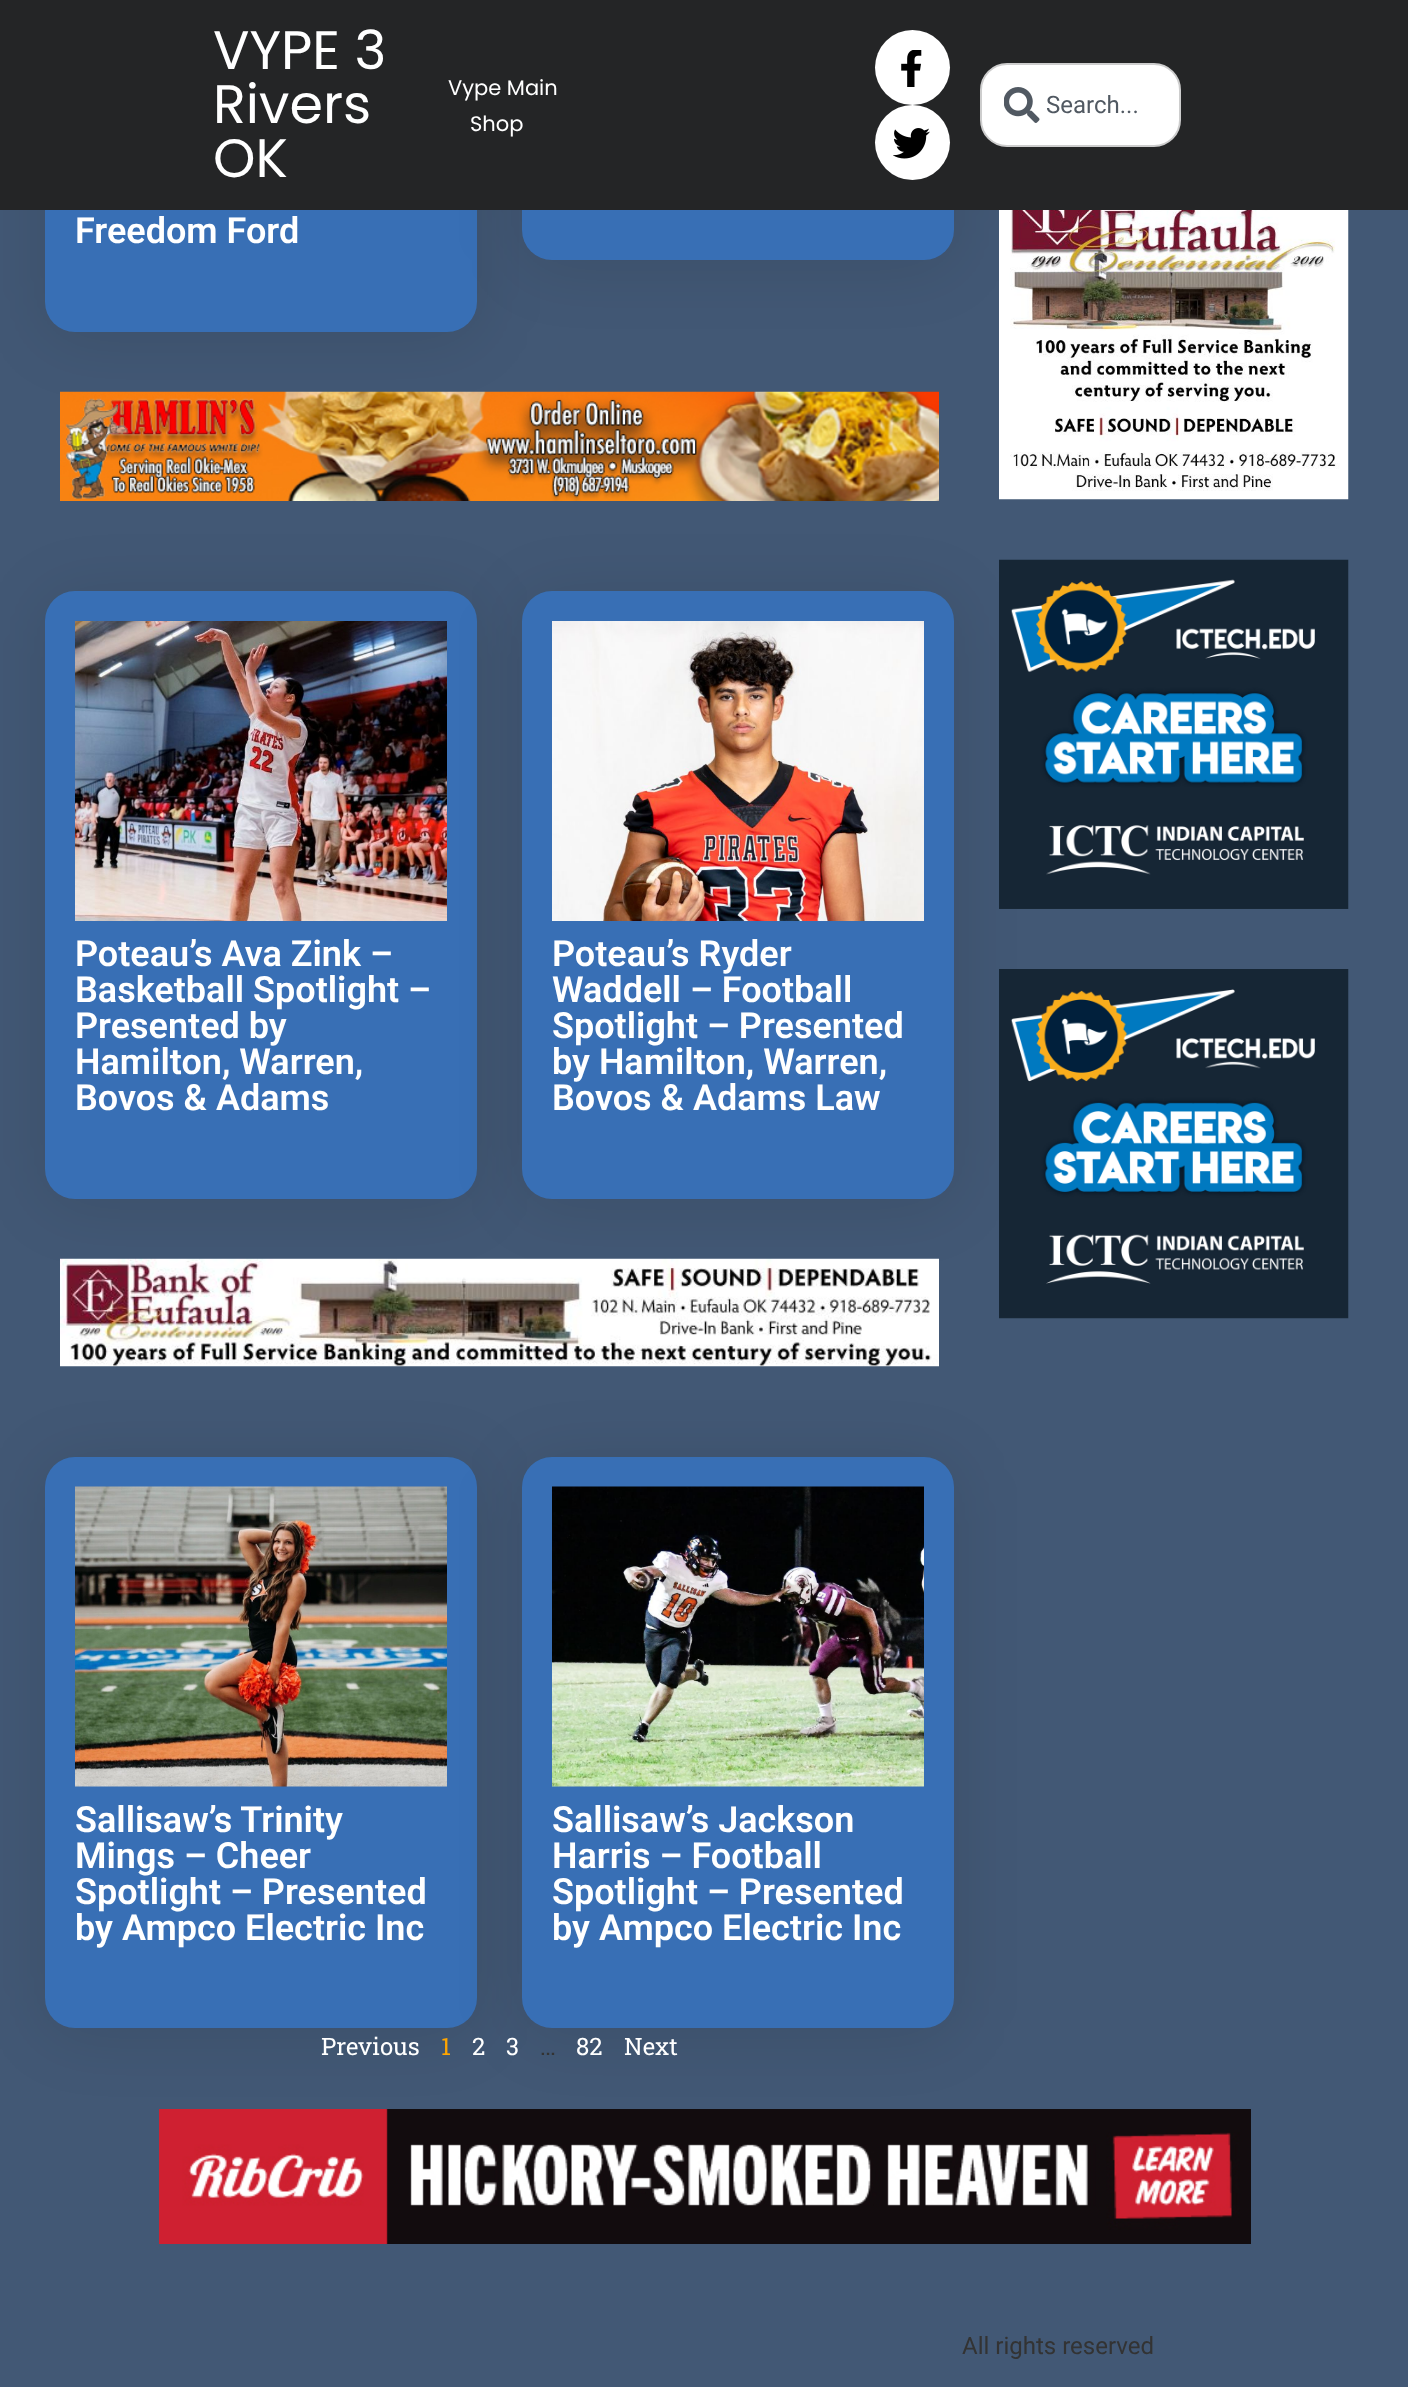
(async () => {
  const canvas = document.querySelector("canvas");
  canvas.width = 1408;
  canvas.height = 2387;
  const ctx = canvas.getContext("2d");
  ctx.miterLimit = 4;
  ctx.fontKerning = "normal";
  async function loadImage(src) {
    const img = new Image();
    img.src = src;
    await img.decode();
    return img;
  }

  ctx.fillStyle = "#425875";
  ctx.fillRect(0, 0, 1408, 2387);
  ctx.fillStyle = "rgba(0, 0, 0, 0.1)";
  ctx.filter = "blur(33px)";
  ctx.beginPath();
  ctx.roundRect(45, -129, 432, 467, 30);
  ctx.fill();
  ctx.filter = "none";
  ctx.fillStyle = "#386fb5";
  ctx.beginPath();
  ctx.roundRect(45, -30, 432, 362, 30);
  ctx.fill();
  ctx.fillStyle = "rgba(0, 0, 0, 0.1)";
  ctx.filter = "blur(33px)";
  ctx.beginPath();
  ctx.roundRect(522, -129, 432, 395, 30);
  ctx.fill();
  ctx.filter = "none";
  ctx.fillStyle = "#386fb5";
  ctx.beginPath();
  ctx.roundRect(522, -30, 432, 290, 30);
  ctx.fill();
  ctx.fillStyle = "#242526";
  ctx.fillRect(0, 0, 1408, 210);
  ctx.fillStyle = "#ffffff";
  ctx.beginPath();
  ctx.arc(912.5, 67.5, 37.5, 0, Math.PI * 2);
  ctx.fill();
  ctx.drawImage(await loadImage("img/1.png"), 901, 50, 21, 37);
  ctx.beginPath();
  ctx.arc(912.5, 142.5, 37.5, 0, Math.PI * 2);
  ctx.fill();
  ctx.drawImage(await loadImage("img/2.png"), 893, 128, 37, 31);
  ctx.beginPath();
  ctx.roundRect(981, 64, 199, 82, 26);
  ctx.fill();
  ctx.strokeStyle = "#cdcdcd";
  ctx.lineWidth = 2;
  ctx.stroke();
  ctx.drawImage(await loadImage("img/3.png"), 1004, 87, 36, 36);
  ctx.drawImage(await loadImage("img/4.png"), 60, 391, 879, 110);
  ctx.fillStyle = "rgba(0, 0, 0, 0.1)";
  ctx.filter = "blur(33px)";
  ctx.beginPath();
  ctx.roundRect(45, 597, 432, 608, 30);
  ctx.fill();
  ctx.filter = "none";
  ctx.fillStyle = "#386fb5";
  ctx.beginPath();
  ctx.roundRect(45, 591, 432, 608, 30);
  ctx.fill();
  ctx.drawImage(await loadImage("img/5.png"), 75, 621, 372, 300);
  ctx.fillStyle = "rgba(0, 0, 0, 0.1)";
  ctx.filter = "blur(33px)";
  ctx.beginPath();
  ctx.roundRect(522, 597, 432, 608, 30);
  ctx.fill();
  ctx.filter = "none";
  ctx.fillStyle = "#386fb5";
  ctx.beginPath();
  ctx.roundRect(522, 591, 432, 608, 30);
  ctx.fill();
  ctx.drawImage(await loadImage("img/6.png"), 552, 621, 372, 300);
  ctx.drawImage(await loadImage("img/7.png"), 60, 1258, 879, 109);
  ctx.fillStyle = "rgba(0, 0, 0, 0.1)";
  ctx.filter = "blur(33px)";
  ctx.beginPath();
  ctx.roundRect(45, 1463, 432, 571, 30);
  ctx.fill();
  ctx.filter = "none";
  ctx.fillStyle = "#386fb5";
  ctx.beginPath();
  ctx.roundRect(45, 1457, 432, 571, 30);
  ctx.fill();
  ctx.drawImage(await loadImage("img/8.png"), 75, 1486, 372, 301);
  ctx.fillStyle = "rgba(0, 0, 0, 0.1)";
  ctx.filter = "blur(33px)";
  ctx.beginPath();
  ctx.roundRect(522, 1463, 432, 571, 30);
  ctx.fill();
  ctx.filter = "none";
  ctx.fillStyle = "#386fb5";
  ctx.beginPath();
  ctx.roundRect(522, 1457, 432, 571, 30);
  ctx.fill();
  ctx.drawImage(await loadImage("img/9.png"), 552, 1486, 372, 301);
  ctx.drawImage(await loadImage("img/10.png"), 999, 210, 350, 290);
  ctx.drawImage(await loadImage("img/11.png"), 999, 559, 350, 350);
  ctx.drawImage(await loadImage("img/12.png"), 999, 969, 350, 350);
  ctx.drawImage(await loadImage("img/13.png"), 159, 2109, 1092, 135);
  ctx.font = "54px Poppins";
  ctx.fillStyle = "#ffffff";
  for (const [text, x, y] of [
    ["VYPE 3", 213, 69],
    ["Rivers", 213, 123],
    ["OK", 213, 177],
  ]) {
    ctx.fillText(text, x, y);
  }
  ctx.font = "21px Poppins";
  ctx.fillText("Vype Main", 448, 95);
  ctx.fillText("Shop", 470, 131);
  ctx.font = "24px Roboto";
  ctx.fillStyle = "#515962";
  ctx.fillText("Search...", 1046, 113);
  ctx.font = "600 36px Roboto";
  ctx.fillStyle = "#ffffff";
  for (const [text, x, y] of [
    ["Freedom Ford", 75, 243],
    ["Poteau’s Ava Zink –", 75, 966],
    ["Basketball Spotlight –", 75, 1002],
    ["Presented by", 75, 1038],
    ["Hamilton, Warren,", 75, 1074],
    ["Bovos & Adams", 75, 1110],
    ["Poteau’s Ryder", 552, 966],
    ["Waddell – Football", 552, 1002],
    ["Spotlight – Presented", 552, 1038],
    ["by Hamilton, Warren,", 552, 1074],
    ["Bovos & Adams Law", 552, 1110],
    ["Sallisaw’s Trinity", 75, 1832],
    ["Mings – Cheer", 75, 1868],
    ["Spotlight – Presented", 75, 1904],
    ["by Ampco Electric Inc", 75, 1940],
    ["Sallisaw’s Jackson", 552, 1832],
    ["Harris – Football", 552, 1868],
    ["Spotlight – Presented", 552, 1904],
    ["by Ampco Electric Inc", 552, 1940],
  ]) {
    ctx.fillText(text, x, y);
  }
  ctx.font = "24px Roboto Slab";
  ctx.fillText("Previous", 321, 2055);
  ctx.fillStyle = "#ffa500";
  ctx.fillText("1", 441, 2055);
  ctx.fillStyle = "#ffffff";
  ctx.fillText("2", 472, 2055);
  ctx.fillText("3", 506, 2055);
  ctx.fillStyle = "#333333";
  ctx.fillText("…", 540, 2055);
  ctx.fillStyle = "#ffffff";
  ctx.fillText("82", 576, 2055);
  ctx.fillText("Next", 624, 2055);
  ctx.font = "24px Roboto";
  ctx.fillStyle = "#333333";
  ctx.fillText("All rights reserved", 962, 2354);
})();
